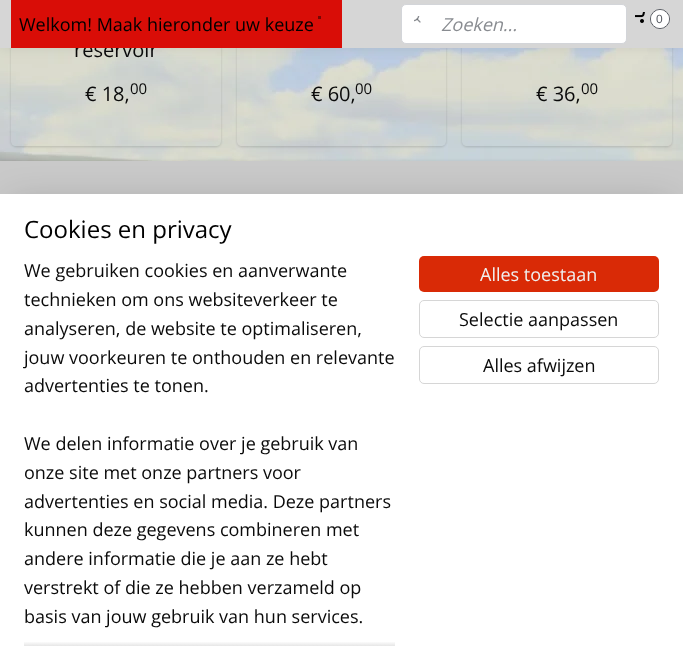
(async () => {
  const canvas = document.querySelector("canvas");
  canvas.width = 683;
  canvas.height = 646;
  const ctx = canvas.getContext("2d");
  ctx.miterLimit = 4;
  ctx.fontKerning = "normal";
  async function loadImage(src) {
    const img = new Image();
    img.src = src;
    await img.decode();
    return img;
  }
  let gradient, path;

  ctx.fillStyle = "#ffffff";
  ctx.fillRect(0, 0, 683, 646);
  ctx.drawImage(await loadImage("img/3.png"), 0, 48, 683, 113);
  ctx.fillStyle = "rgba(0, 0, 0, 0.08)";
  ctx.filter = "blur(6px)";
  ctx.beginPath();
  ctx.rect(0, 0, 683, 48);
  ctx.fill();
  ctx.filter = "none";
  ctx.save();
  path = new Path2D("M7 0H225V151H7ZM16-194H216C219-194 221-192 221-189V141C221 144 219 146 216 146H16C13 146 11 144 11 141V-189C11-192 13-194 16-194Z");
  ctx.clip(path, "evenodd");
  ctx.fillStyle = "rgba(0, 0, 0, 0.15)";
  ctx.filter = "blur(1px)";
  ctx.beginPath();
  ctx.roundRect(11, -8, 210, 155, 5);
  ctx.fill();
  ctx.filter = "none";
  ctx.restore();
  ctx.save();
  path = new Path2D("M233 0H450V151H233ZM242-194H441C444-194 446-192 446-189V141C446 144 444 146 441 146H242C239 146 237 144 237 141V-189C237-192 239-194 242-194Z");
  ctx.clip(path, "evenodd");
  ctx.fillStyle = "rgba(0, 0, 0, 0.15)";
  ctx.filter = "blur(1px)";
  ctx.beginPath();
  ctx.roundRect(237, -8, 209, 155, 5);
  ctx.fill();
  ctx.filter = "none";
  ctx.restore();
  ctx.save();
  path = new Path2D("M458 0H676V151H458ZM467-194H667C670-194 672-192 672-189V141C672 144 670 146 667 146H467C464 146 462 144 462 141V-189C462-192 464-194 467-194Z");
  ctx.clip(path, "evenodd");
  ctx.fillStyle = "rgba(0, 0, 0, 0.15)";
  ctx.filter = "blur(1px)";
  ctx.beginPath();
  ctx.roundRect(462, -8, 210, 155, 5);
  ctx.fill();
  ctx.filter = "none";
  ctx.restore();
  ctx.fillStyle = "rgba(0, 0, 0, 0.05)";
  ctx.filter = "blur(1px)";
  ctx.beginPath();
  ctx.rect(0, 160, 683, 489);
  ctx.fill();
  ctx.filter = "none";
  ctx.fillStyle = "#c9c9c9";
  ctx.fillRect(0, 161, 683, 33);
  ctx.fillStyle = "rgba(0, 0, 0, 0.2)";
  ctx.filter = "blur(18px)";
  ctx.beginPath();
  ctx.rect(10, 204, 663, 432);
  ctx.fill();
  ctx.filter = "none";
  ctx.fillStyle = "#ffffff";
  ctx.fillRect(0, 194, 683, 452);
  gradient = ctx.createLinearGradient(210, 640, 210, 646);
  gradient.addColorStop(0.2, "#ffffff");
  gradient.addColorStop(1, "#e6e6e6");
  ctx.fillStyle = gradient;
  ctx.fillRect(24, 642, 371, 4);
  ctx.fillStyle = "#d92a06";
  ctx.beginPath();
  ctx.roundRect(419, 256, 240, 36, 5);
  ctx.fill();
  ctx.beginPath();
  ctx.roundRect(419.5, 300.5, 239, 37, 4.5);
  ctx.strokeStyle = "#d6d6d6";
  ctx.stroke();
  ctx.beginPath();
  ctx.roundRect(419.5, 346.5, 239, 37, 4.5);
  ctx.stroke();
  ctx.font = "20px Open Sans";
  ctx.fillStyle = "#0a0a0a";
  ctx.fillText("reservoir", 74, 57);
  ctx.fillStyle = "#d6d6d6";
  ctx.fillRect(0, 0, 683, 48);
  ctx.beginPath();
  ctx.arc(660, 19, 9.5, 0, Math.PI * 2);
  ctx.strokeStyle = "#575b62";
  ctx.stroke();
  ctx.fillStyle = "#ffffff";
  ctx.beginPath();
  ctx.arc(660, 19, 9, 0, Math.PI * 2);
  ctx.fill();
  ctx.font = "12px Liberation Sans";
  ctx.fillStyle = "#575b62";
  ctx.fillText("0", 656, 23);
  ctx.drawImage(await loadImage("img/2.png"), 635, 12, 10, 11);
  ctx.fillStyle = "#ffffff";
  ctx.beginPath();
  ctx.roundRect(401.5, 4.5, 225, 39, 4.5);
  ctx.fill();
  ctx.strokeStyle = "#d3d5d9";
  ctx.stroke();
  ctx.drawImage(await loadImage("img/1.png"), 414, 16, 7, 7);
  ctx.fillStyle = "#d90d07";
  ctx.fillRect(11, 0, 331, 48);
  ctx.fillStyle = "#770704";
  ctx.fillRect(318, 16, 3, 3);
  ctx.font = "18px Open Sans";
  ctx.fillStyle = "#000000";
  ctx.fillText("Welkom! Maak hieronder uw keuze", 19, 31);
  ctx.font = "italic 18px Open Sans";
  ctx.fillStyle = "#898c91";
  ctx.fillText("Zoeken...", 441, 31);
  ctx.font = "20px Open Sans";
  ctx.fillStyle = "#0a0a0a";
  ctx.fillText("€ 18,", 85, 101);
  ctx.font = "15px Open Sans";
  ctx.fillText("00", 130, 94);
  ctx.font = "20px Open Sans";
  ctx.fillText("€ 60,", 311, 101);
  ctx.font = "15px Open Sans";
  ctx.fillText("00", 355, 94);
  ctx.font = "20px Open Sans";
  ctx.fillText("€ 36,", 536, 101);
  ctx.font = "15px Open Sans";
  ctx.fillText("00", 581, 94);
  ctx.font = "24px Open Sans";
  ctx.fillStyle = "#000000";
  ctx.fillText("Cookies en privacy", 24, 238);
  ctx.font = "18px Open Sans";
  ctx.fillStyle = "#0a0a0a";
  for (const [text, x, y] of [
    ["We gebruiken cookies en aanverwante", 24, 277],
    ["technieken om ons websiteverkeer te", 24, 306],
    ["analyseren, de website te optimaliseren,", 24, 335],
    ["jouw voorkeuren te onthouden en relevante", 24, 364],
    ["advertenties te tonen.", 24, 392],
    ["We delen informatie over je gebruik van", 24, 450],
    ["onze site met onze partners voor", 24, 479],
    ["advertenties en social media. Deze partners", 24, 508],
    ["kunnen deze gegevens combineren met", 24, 536],
    ["andere informatie die je aan ze hebt", 24, 565],
    ["verstrekt of die ze hebben verzameld op", 24, 594],
    ["basis van jouw gebruik van hun services.", 24, 623],
  ]) {
    ctx.fillText(text, x, y);
  }
  ctx.fillStyle = "#f0f0f0";
  ctx.fillText("Alles toestaan", 480, 281);
  ctx.fillStyle = "#0a0a0a";
  ctx.fillText("Selectie aanpassen", 459, 326);
  ctx.fillText("Alles afwijzen", 483, 372);
})();
